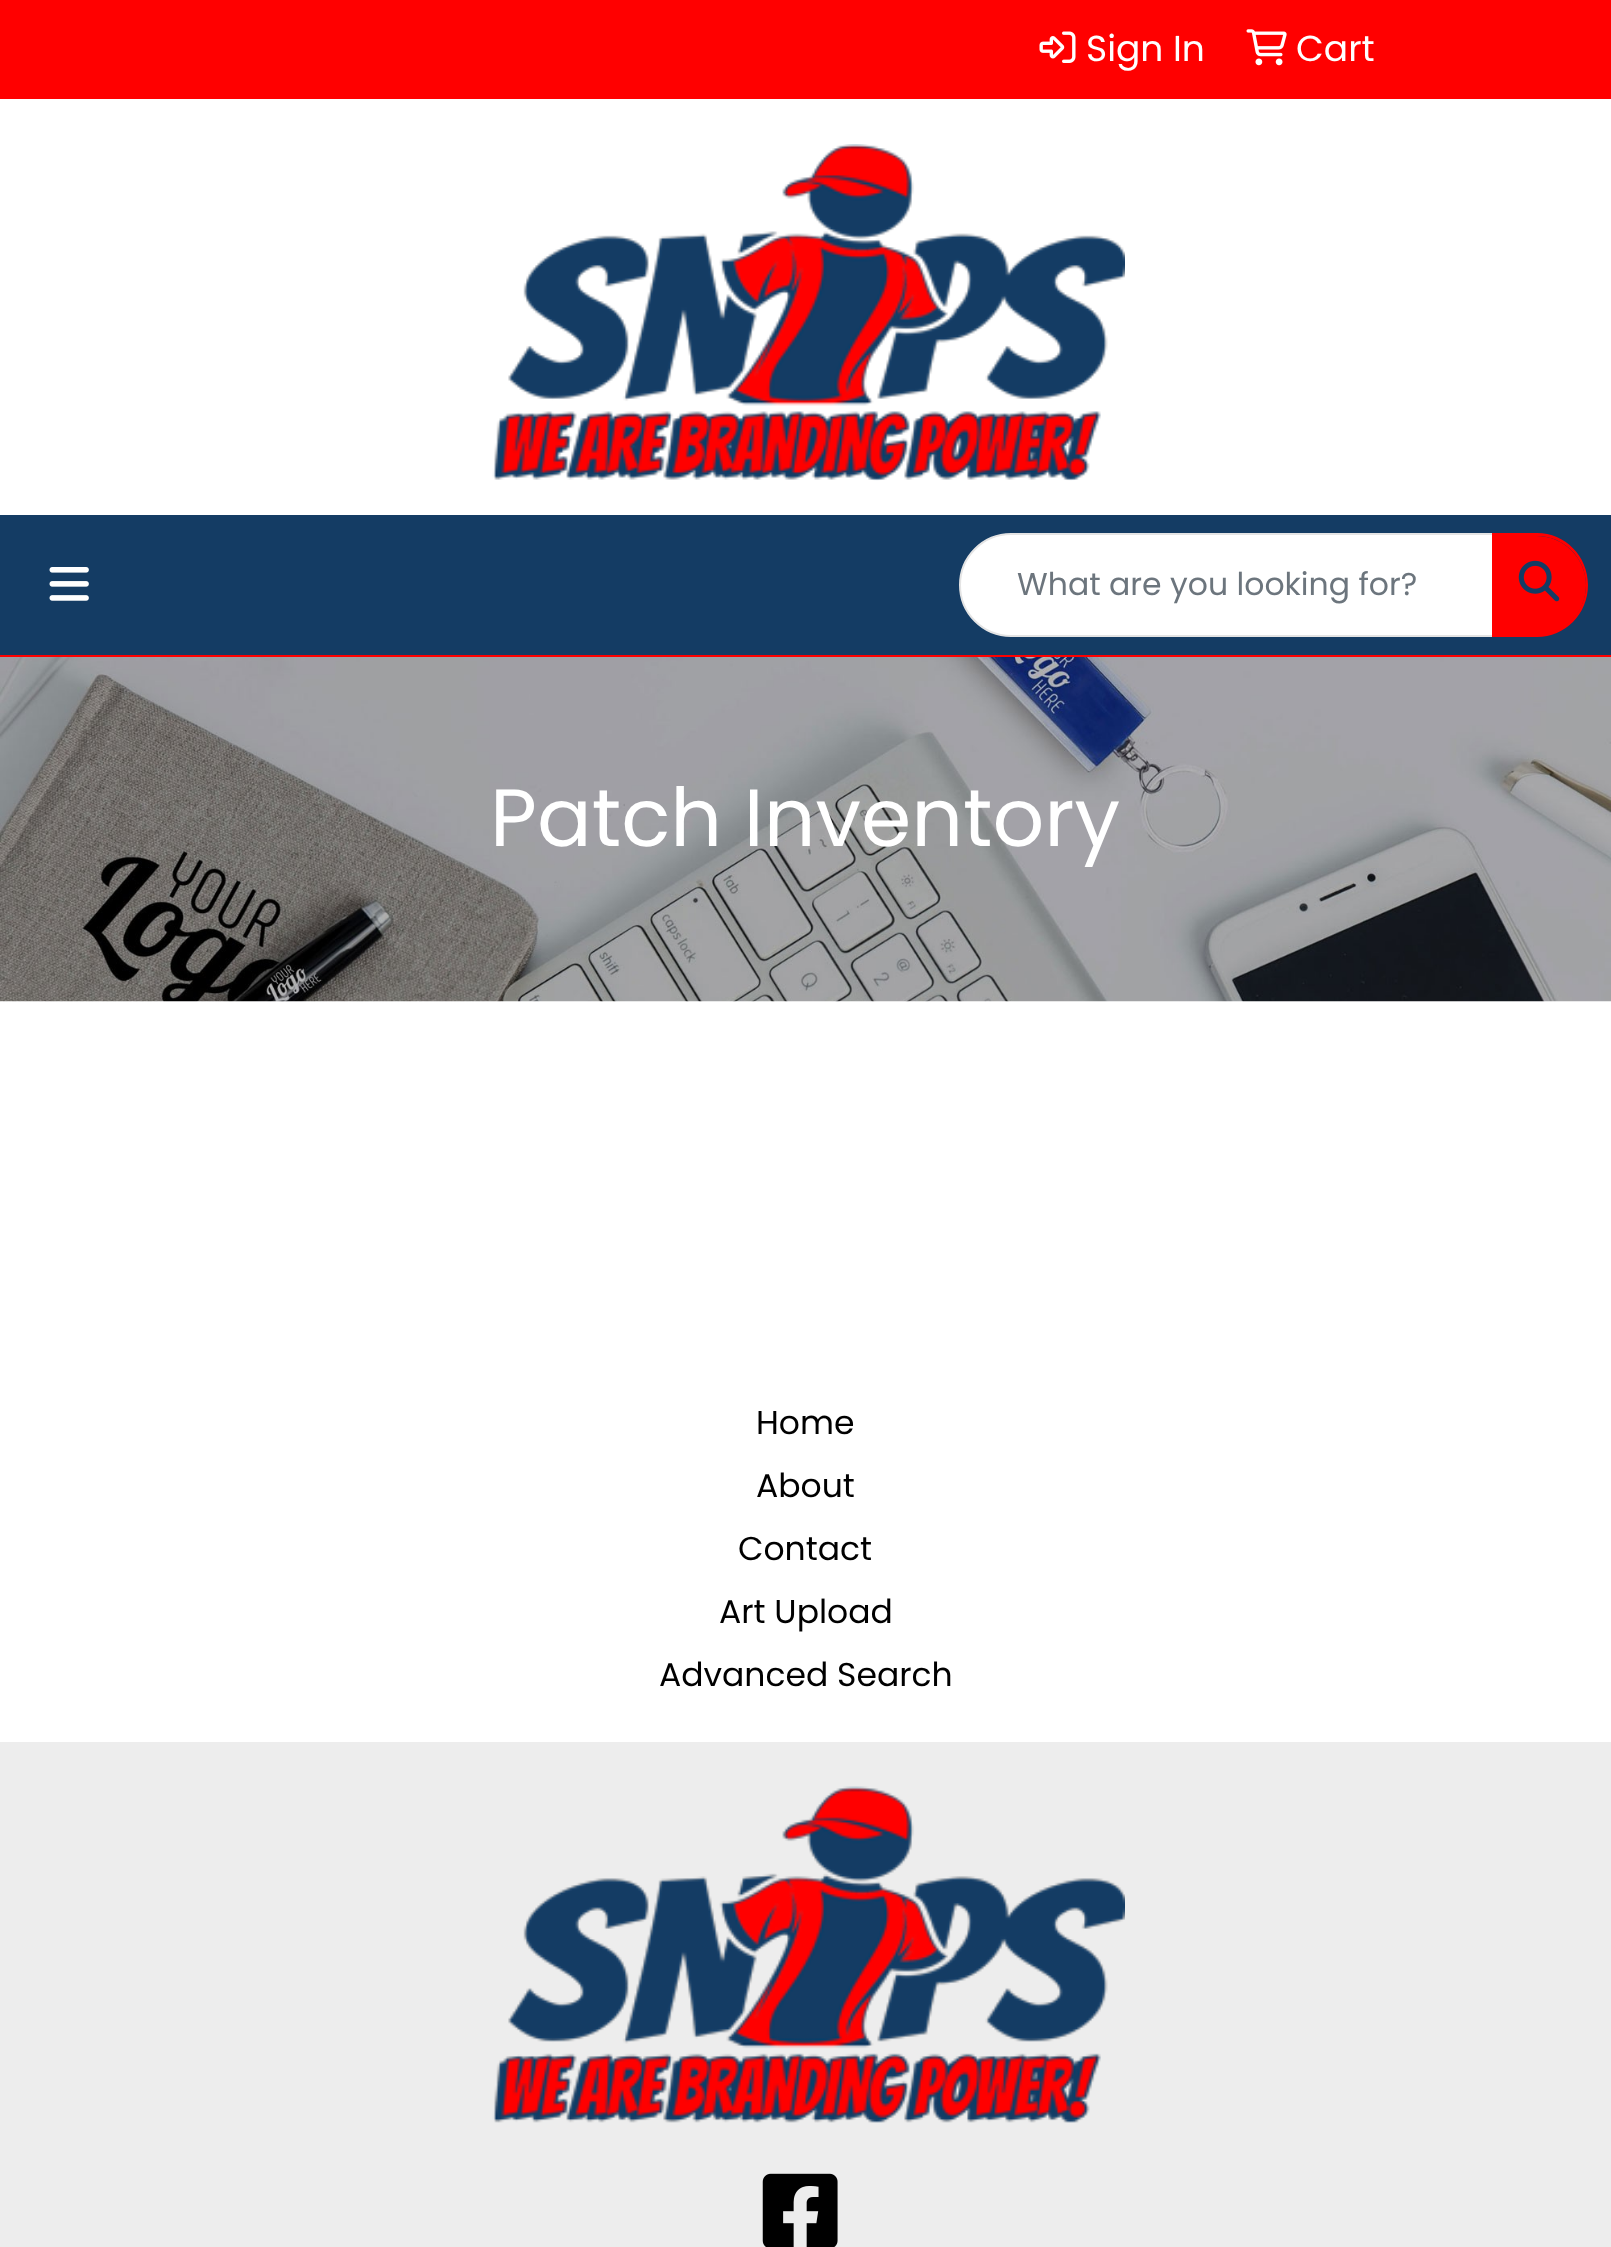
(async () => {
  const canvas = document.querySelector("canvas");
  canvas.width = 1611;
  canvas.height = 2247;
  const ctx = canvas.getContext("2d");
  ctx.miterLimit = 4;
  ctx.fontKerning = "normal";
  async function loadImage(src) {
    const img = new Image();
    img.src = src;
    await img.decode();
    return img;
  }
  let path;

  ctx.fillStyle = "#ffffff";
  ctx.fillRect(0, 0, 1611, 2247);
  ctx.fillStyle = "#ff0000";
  ctx.fillRect(0, 0, 1611, 99);
  ctx.drawImage(await loadImage("img/1.png"), 1039, 31, 37, 32);
  ctx.drawImage(await loadImage("img/2.png"), 1246, 29, 41, 37);
  ctx.drawImage(await loadImage("img/3.png"), 492, 144, 633, 337);
  ctx.fillStyle = "#143c64";
  ctx.fillRect(0, 515, 1611, 140);
  ctx.fillStyle = "#ff0000";
  ctx.fillRect(0, 655, 1611, 2);
  ctx.drawImage(await loadImage("img/4.png"), 49, 567, 40, 34);
  ctx.fillStyle = "#ffffff";
  ctx.beginPath();
  ctx.roundRect(960, 534, 533, 102, [51, 0, 0, 51]);
  ctx.fill();
  ctx.strokeStyle = "#e4e4e4";
  ctx.lineWidth = 2;
  ctx.stroke();
  ctx.fillStyle = "#ff0000";
  ctx.beginPath();
  ctx.roundRect(1492, 536, 94, 99, [0, 49.5, 49.5, 0]);
  ctx.fill();
  path = new Path2D("M1492 533H1537C1565 533 1588 556 1588 585C1588 614 1565 637 1537 637H1492ZM1492 536H1537C1564 536 1586 558 1586 585C1586 612 1564 634 1537 634H1492Z");
  ctx.fill(path, "evenodd");
  ctx.drawImage(await loadImage("img/5.png"), 1518, 560, 42, 42);
  ctx.drawImage(await loadImage("img/6.png"), 0, 657, 1611, 345);
  ctx.fillStyle = "#ededed";
  ctx.fillRect(0, 1742, 1611, 505);
  ctx.drawImage(await loadImage("img/7.png"), 492, 1786, 633, 337);
  ctx.drawImage(await loadImage("img/8.png"), 762, 2173, 76, 74);
  ctx.font = "36px Poppins";
  ctx.fillStyle = "#ffffff";
  ctx.fillText("Sign In", 1086, 61);
  ctx.fillText("Cart", 1296, 61);
  ctx.font = "31.5px Poppins";
  ctx.fillStyle = "#6c757d";
  ctx.fillText("What are you looking for?", 1017, 595);
  ctx.font = "81px Poppins";
  ctx.fillStyle = "#ffffff";
  ctx.fillText("Patch Inventory", 490, 846);
  ctx.font = "33px Poppins";
  ctx.fillStyle = "#000000";
  for (const [text, x, y] of [
    ["Home", 756, 1434],
    ["About", 756, 1497],
    ["Contact", 738, 1560],
    ["Art Upload", 719, 1623],
    ["Advanced Search", 659, 1686],
  ]) {
    ctx.fillText(text, x, y);
  }
})();
